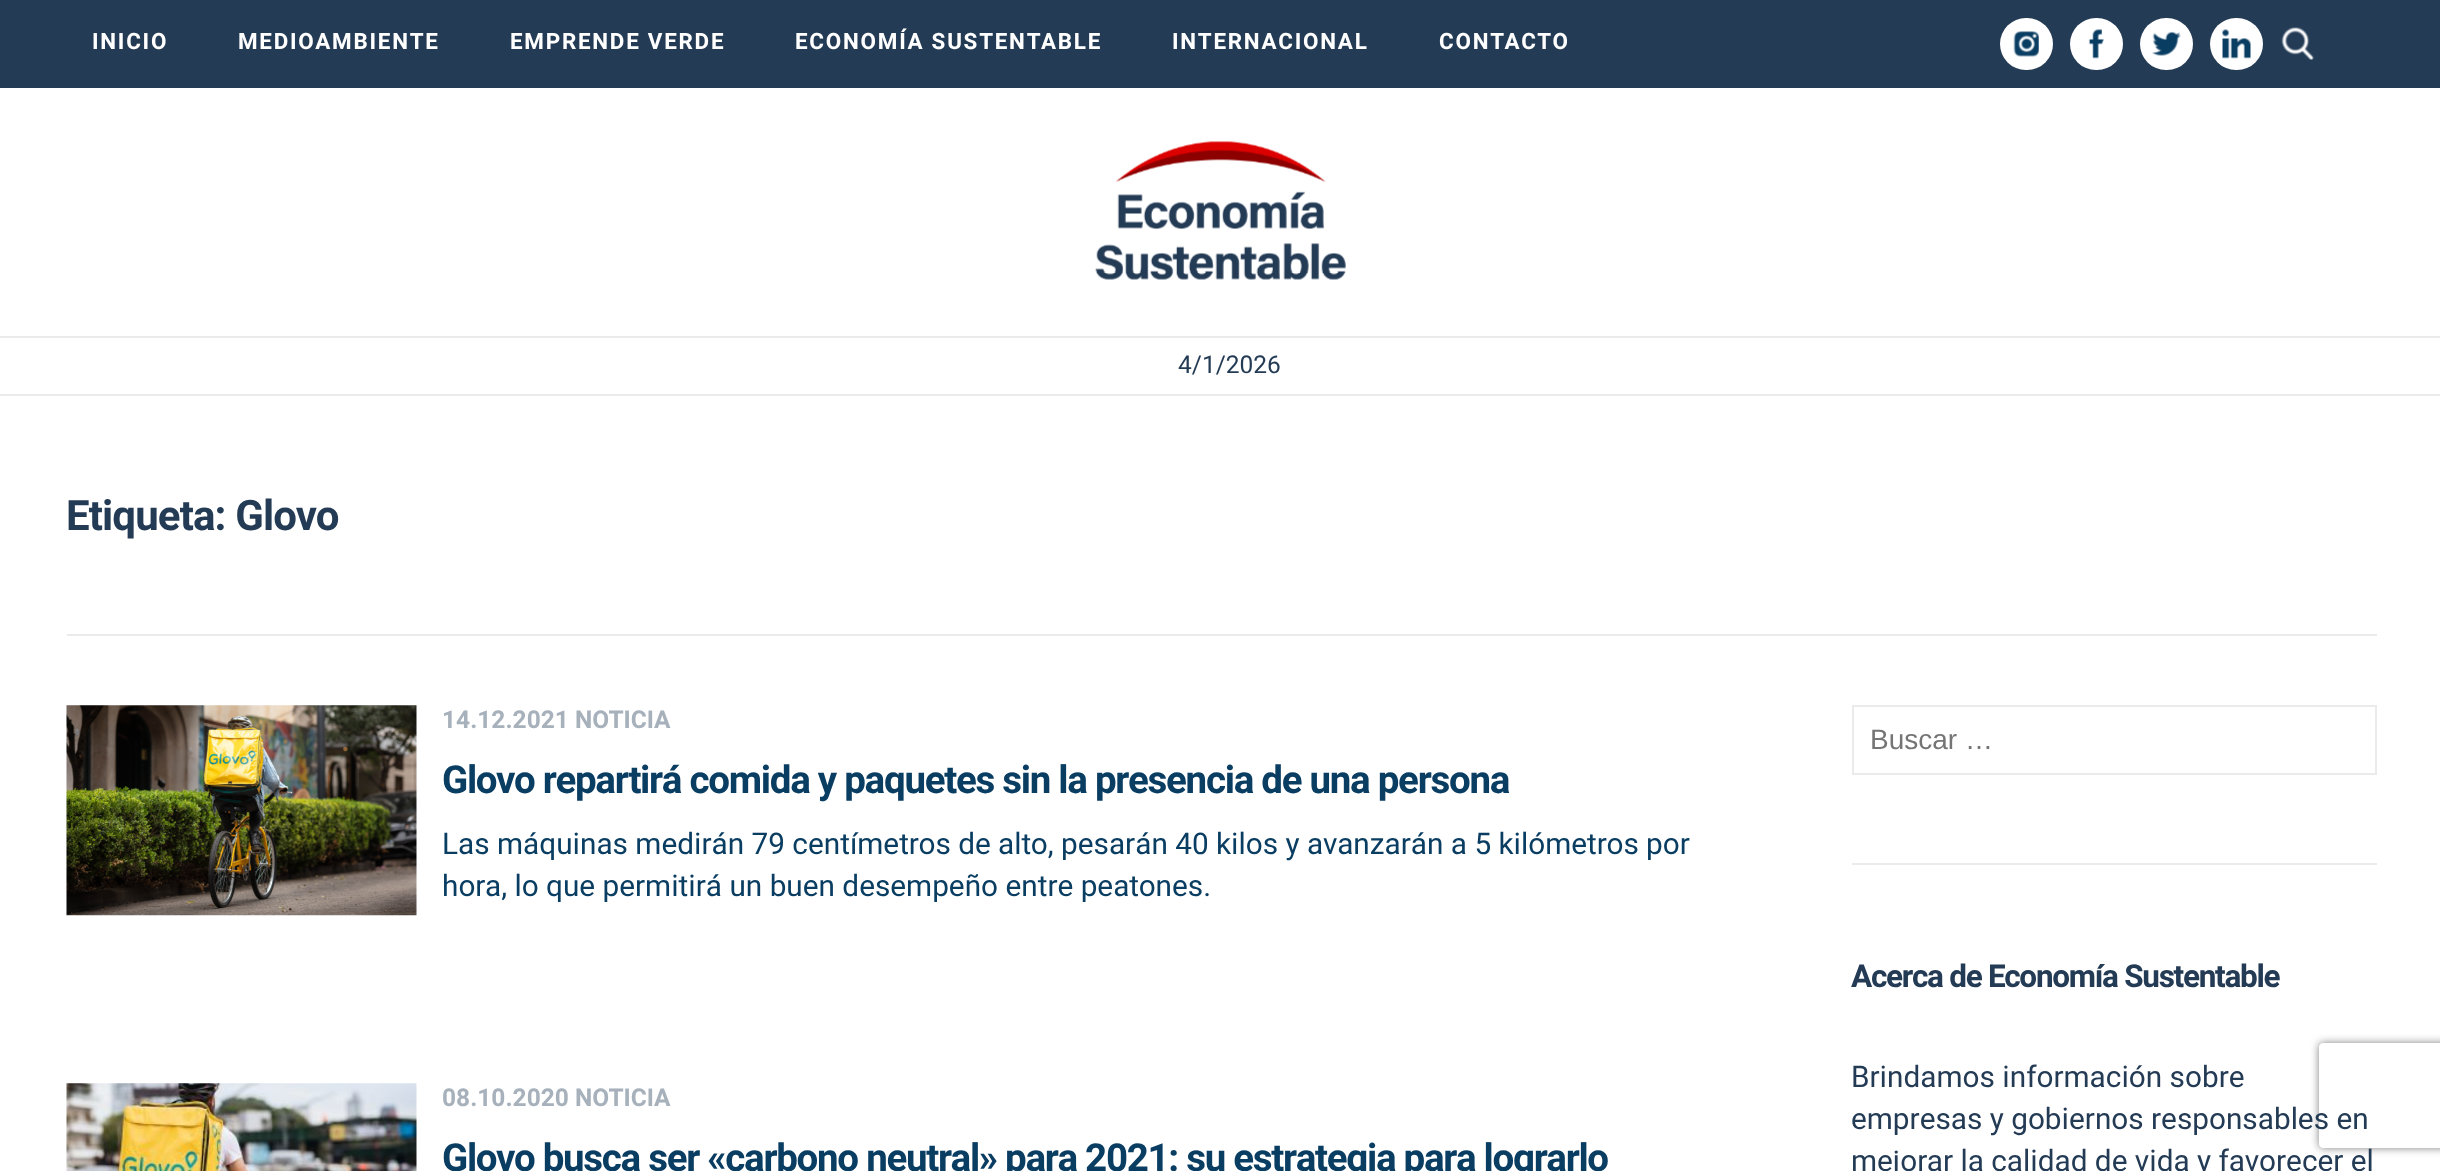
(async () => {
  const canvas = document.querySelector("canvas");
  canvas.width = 2440;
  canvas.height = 1171;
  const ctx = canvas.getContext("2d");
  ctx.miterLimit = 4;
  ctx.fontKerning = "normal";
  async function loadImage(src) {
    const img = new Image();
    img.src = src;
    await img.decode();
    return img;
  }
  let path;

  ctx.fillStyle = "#ffffff";
  ctx.fillRect(0, 0, 2440, 1171);
  ctx.fillStyle = "#ebebeb";
  ctx.fillRect(0, 394, 2440, 2);
  ctx.fillStyle = "#243b55";
  ctx.fillRect(0, 0, 2440, 88);
  ctx.fillStyle = "#ffffff";
  ctx.beginPath();
  ctx.roundRect(2000, 18, 53, 52, 26);
  ctx.fill();
  ctx.drawImage(await loadImage("img/1.png"), 2013, 31, 26, 26);
  ctx.beginPath();
  ctx.roundRect(2070, 18, 53, 52, 26);
  ctx.fill();
  ctx.drawImage(await loadImage("img/2.png"), 2088, 29, 16, 30);
  ctx.beginPath();
  ctx.roundRect(2140, 18, 53, 52, 26);
  ctx.fill();
  ctx.drawImage(await loadImage("img/3.png"), 2152, 31, 29, 25);
  ctx.beginPath();
  ctx.roundRect(2210, 18, 53, 52, 26);
  ctx.fill();
  ctx.drawImage(await loadImage("img/4.png"), 2222, 29, 29, 30);
  ctx.drawImage(await loadImage("img/5.png"), 2281, 27, 33, 33);
  ctx.drawImage(await loadImage("img/6.png"), 1095, 141, 251, 139);
  ctx.fillStyle = "#ebebeb";
  ctx.fillRect(0, 336, 2440, 2);
  ctx.fillRect(67, 634, 2310, 2);
  ctx.drawImage(await loadImage("img/7.png"), 66, 705, 351, 211);
  ctx.drawImage(await loadImage("img/8.png"), 66, 1083, 351, 88);
  ctx.fillRect(1852, 863, 525, 2);
  ctx.strokeStyle = "#ebebeb";
  ctx.lineWidth = 2;
  ctx.strokeRect(1853, 706, 523, 68);
  ctx.save();
  path = new Path2D("M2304 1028H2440V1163H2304ZM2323 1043H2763C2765 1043 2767 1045 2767 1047V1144C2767 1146 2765 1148 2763 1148H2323C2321 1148 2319 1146 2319 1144V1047C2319 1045 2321 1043 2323 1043Z");
  ctx.clip(path, "evenodd");
  ctx.fillStyle = "#808080";
  ctx.filter = "blur(4.5px)";
  ctx.beginPath();
  ctx.roundRect(2319, 1043, 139, 105, 4);
  ctx.fill();
  ctx.filter = "none";
  ctx.restore();
  ctx.letterSpacing = "1.75px";
  ctx.font = "bold 22.4px Heebo";
  ctx.fillStyle = "#ffffff";
  for (const [text, x, y] of [
    ["INICIO", 92, 49],
    ["MEDIOAMBIENTE", 238, 49],
    ["EMPRENDE VERDE", 510, 49],
    ["ECONOMÍA SUSTENTABLE", 795, 49],
    ["INTERNACIONAL", 1172, 49],
    ["CONTACTO", 1439, 49],
  ]) {
    ctx.fillText(text, x, y);
  }
  ctx.letterSpacing = "0px";
  ctx.font = "24.5px Heebo";
  ctx.fillStyle = "#243b55";
  ctx.fillText("4/1/2026", 1178, 373);
  ctx.letterSpacing = "-0.9px";
  ctx.font = "bold 42px Heebo";
  ctx.fillText("Etiqueta: Glovo", 66, 530);
  ctx.letterSpacing = "0px";
  ctx.font = "bold 24.5px Heebo";
  ctx.fillStyle = "#a7b1bb";
  ctx.fillText("14.12.2021 NOTICIA", 442, 728);
  ctx.letterSpacing = "-1.3px";
  ctx.font = "bold 38.5px Heebo";
  ctx.fillStyle = "#0a3d62";
  ctx.fillText("Glovo repartirá comida y paquetes sin la presencia de una persona", 442, 793);
  ctx.letterSpacing = "0px";
  ctx.font = "29.75px Heebo";
  ctx.fillText("Las máquinas medirán 79 centímetros de alto, pesarán 40 kilos y avanzarán a 5 kilómetros por", 442, 854);
  ctx.fillText("hora, lo que permitirá un buen desempeño entre peatones.", 442, 896);
  ctx.font = "bold 24.5px Heebo";
  ctx.fillStyle = "#a7b1bb";
  ctx.fillText("08.10.2020 NOTICIA", 442, 1106);
  ctx.letterSpacing = "-1.3px";
  ctx.font = "bold 38.5px Heebo";
  ctx.fillStyle = "#0a3d62";
  ctx.fillText("Glovo busca ser «carbono neutral» para 2021: su estrategia para lograrlo", 442, 1171);
  ctx.letterSpacing = "0px";
  ctx.font = "28px Liberation Sans";
  ctx.fillStyle = "#757575";
  ctx.fillText("Buscar …", 1870, 749);
  ctx.letterSpacing = "-1.3px";
  ctx.font = "bold 31.5px Heebo";
  ctx.fillStyle = "#243b55";
  ctx.fillText("Acerca de Economía Sustentable", 1851, 987);
  ctx.letterSpacing = "0px";
  ctx.font = "29.75px Heebo";
  for (const [text, x, y] of [
    ["Brindamos información sobre", 1851, 1087],
    ["empresas y gobiernos responsables en", 1851, 1129],
    ["mejorar la calidad de vida y favorecer el", 1851, 1171],
  ]) {
    ctx.fillText(text, x, y);
  }
})();
